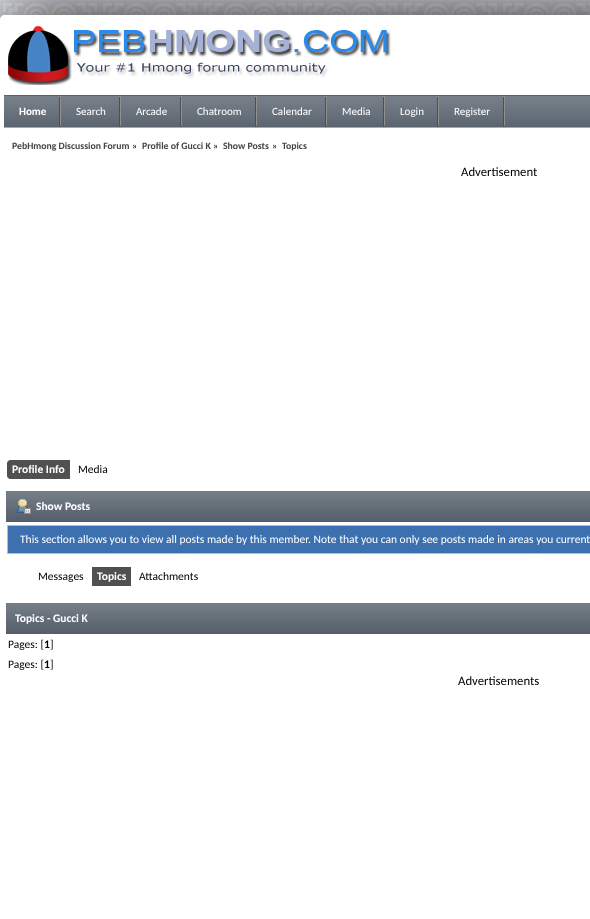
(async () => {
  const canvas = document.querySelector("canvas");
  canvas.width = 590;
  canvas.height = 919;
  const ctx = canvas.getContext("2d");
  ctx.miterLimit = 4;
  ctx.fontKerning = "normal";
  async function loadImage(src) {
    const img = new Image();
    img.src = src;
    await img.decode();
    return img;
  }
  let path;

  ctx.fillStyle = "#ffffff";
  ctx.fillRect(0, 0, 590, 919);
  ctx.drawImage(await loadImage("img/1.png"), 0, 0, 590, 20);
  ctx.fillStyle = "#000000";
  ctx.filter = "blur(40px)";
  ctx.beginPath();
  ctx.roundRect(0, 17, 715, 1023, 5);
  ctx.fill();
  ctx.filter = "none";
  ctx.fillStyle = "#ffffff";
  path = new Path2D("M5 15H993C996 15 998 17 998 20V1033C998 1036 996 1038 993 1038H5C2 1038 0 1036 0 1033V20C0 17 2 15 5 15ZM5 15H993C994 15 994 17 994 20V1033C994 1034 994 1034 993 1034H5C4 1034 4 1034 4 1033V20C4 17 4 15 5 15Z");
  ctx.fill(path, "evenodd");
  ctx.fillRect(4, 15, 586, 80);
  ctx.drawImage(await loadImage("img/2.png"), 8, 26, 383, 59);
  ctx.drawImage(await loadImage("img/3.png"), 4, 96, 586, 31);
  ctx.fillStyle = "#606060";
  ctx.fillRect(4, 95, 586, 1);
  ctx.drawImage(await loadImage("img/4.png"), 59, 96, 2, 31);
  ctx.drawImage(await loadImage("img/4.png"), 119, 96, 2, 31);
  ctx.drawImage(await loadImage("img/4.png"), 180, 96, 2, 31);
  ctx.drawImage(await loadImage("img/4.png"), 255, 96, 2, 31);
  ctx.drawImage(await loadImage("img/4.png"), 325, 96, 2, 31);
  ctx.drawImage(await loadImage("img/4.png"), 383, 96, 2, 31);
  ctx.drawImage(await loadImage("img/4.png"), 437, 96, 2, 31);
  ctx.drawImage(await loadImage("img/4.png"), 503, 96, 2, 31);
  for (const [x, y, w, h, color] of [
    [4, 128, 586, 791, "#ffffff"],
    [4, 127, 586, 1, "#a3a9be"],
    [12, 460, 58, 19, "#505050"],
  ]) {
    ctx.fillStyle = color;
    ctx.fillRect(x, y, w, h);
  }
  ctx.drawImage(await loadImage("img/5.png"), 7, 460, 5, 19);
  ctx.drawImage(await loadImage("img/6.png"), 6, 491, 584, 31);
  ctx.drawImage(await loadImage("img/7.png"), 17, 499, 14, 15);
  ctx.fillStyle = "#3d70af";
  ctx.beginPath();
  ctx.rect(7.5, 525.5, 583, 28);
  ctx.fill();
  ctx.strokeStyle = "#bbbbbb";
  ctx.stroke();
  ctx.fillStyle = "#505050";
  ctx.fillRect(92, 567, 39, 19);
  ctx.drawImage(await loadImage("img/6.png"), 6, 603, 584, 31);
  ctx.font = "bold 11px Carlito";
  ctx.fillStyle = "#ffffff";
  ctx.fillText("Home", 19, 115);
  ctx.font = "11px Carlito";
  for (const [text, x, y] of [
    ["Search", 76, 115],
    ["Arcade", 136, 115],
    ["Chatroom", 197, 115],
    ["Calendar", 272, 115],
    ["Media", 342, 115],
    ["Login", 400, 115],
    ["Register", 454, 115],
  ]) {
    ctx.fillText(text, x, y);
  }
  ctx.font = "bold 9.75px Carlito";
  ctx.fillStyle = "#454545";
  ctx.fillText("PebHmong Discussion Forum", 12, 149);
  ctx.font = "9.75px Carlito";
  ctx.fillStyle = "#000000";
  ctx.fillText("»", 132, 149);
  ctx.font = "bold 9.75px Carlito";
  ctx.fillStyle = "#454545";
  ctx.fillText("Profile of Gucci K", 142, 149);
  ctx.font = "9.75px Carlito";
  ctx.fillStyle = "#000000";
  ctx.fillText("»", 213, 149);
  ctx.font = "bold 9.75px Carlito";
  ctx.fillStyle = "#454545";
  ctx.fillText("Show Posts", 223, 149);
  ctx.font = "9.75px Carlito";
  ctx.fillStyle = "#000000";
  ctx.fillText("»", 272, 149);
  ctx.font = "bold 9.75px Carlito";
  ctx.fillStyle = "#454545";
  ctx.fillText("Topics", 282, 149);
  ctx.font = "12.75px Carlito";
  ctx.fillStyle = "#000000";
  ctx.fillText("Advertisement", 461, 176);
  ctx.font = "bold 11.5px Carlito";
  ctx.fillStyle = "#ffffff";
  ctx.fillText("Profile Info", 12, 473);
  ctx.font = "11.5px Carlito";
  ctx.fillStyle = "#000000";
  ctx.fillText("Media", 78, 473);
  ctx.font = "bold 11.5px Carlito";
  ctx.fillStyle = "#ffffff";
  ctx.fillText("Show Posts", 36, 510);
  ctx.font = "11.5px Carlito";
  ctx.fillText("This section allows you to view all posts made by this member. Note that you can only see posts made in areas you current", 20, 543);
  ctx.fillStyle = "#000000";
  ctx.fillText("Messages", 38, 580);
  ctx.font = "bold 11.5px Carlito";
  ctx.fillStyle = "#ffffff";
  ctx.fillText("Topics", 97, 580);
  ctx.font = "11.5px Carlito";
  ctx.fillStyle = "#000000";
  ctx.fillText("Attachments", 139, 580);
  ctx.font = "bold 11.5px Carlito";
  ctx.fillStyle = "#ffffff";
  ctx.fillText("Topics - Gucci K", 15, 622);
  ctx.font = "11.5px Carlito";
  ctx.fillStyle = "#000000";
  ctx.fillText("Pages: [", 8, 648);
  ctx.font = "bold 11.5px Carlito";
  ctx.fillText("1", 44, 648);
  ctx.font = "11.5px Carlito";
  ctx.fillText("]", 50, 648);
  ctx.fillText("Pages: [", 8, 668);
  ctx.font = "bold 11.5px Carlito";
  ctx.fillText("1", 44, 668);
  ctx.font = "11.5px Carlito";
  ctx.fillText("]", 50, 668);
  ctx.font = "12.75px Carlito";
  ctx.fillText("Advertisements", 458, 685);
})();
